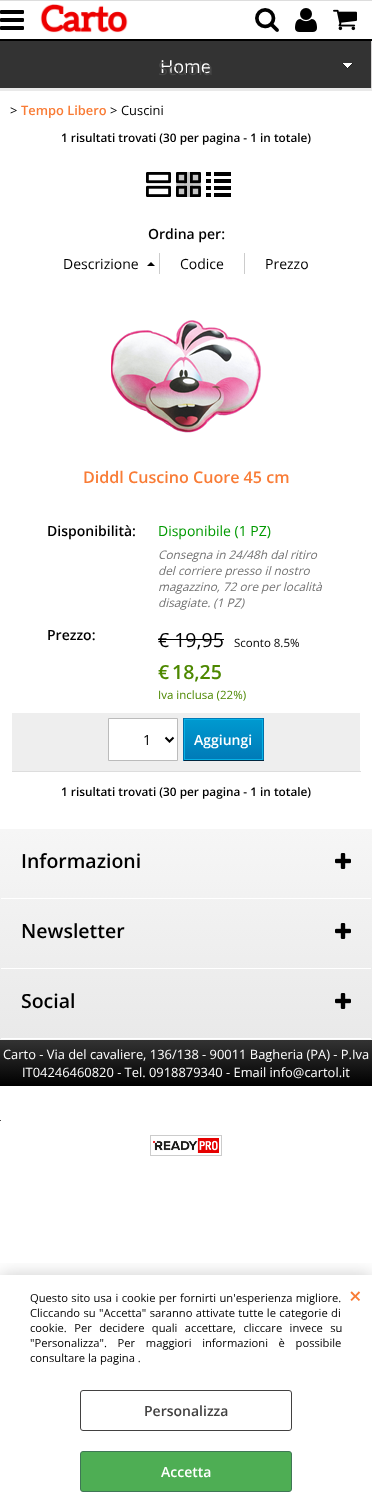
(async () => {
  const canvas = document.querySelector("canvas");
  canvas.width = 372;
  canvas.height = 1502;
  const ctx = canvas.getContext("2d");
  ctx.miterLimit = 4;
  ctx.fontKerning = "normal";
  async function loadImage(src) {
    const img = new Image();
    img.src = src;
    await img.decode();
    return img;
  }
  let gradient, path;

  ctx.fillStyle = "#ffffff";
  ctx.fillRect(0, 0, 372, 1502);
  ctx.fillStyle = "#dddddd";
  ctx.fillRect(0, 0, 372, 1);
  ctx.fillStyle = "#000000";
  ctx.fillRect(0, 39, 372, 2);
  ctx.drawImage(await loadImage("img/1.png"), 0, 10, 24, 20);
  ctx.drawImage(await loadImage("img/2.png"), 40, 4, 88, 29);
  ctx.drawImage(await loadImage("img/3.png"), 255, 8, 24, 24);
  ctx.drawImage(await loadImage("img/4.png"), 295, 8, 22, 24);
  ctx.drawImage(await loadImage("img/5.png"), 333, 9, 24, 22);
  ctx.fillStyle = "#e9e9e9";
  ctx.fillRect(0, 88, 372, 3);
  ctx.fillStyle = "#333333";
  ctx.fillRect(0, 41, 371, 47);
  ctx.drawImage(await loadImage("img/6.png"), 342, 63, 11, 6);
  ctx.fillStyle = "#d6d4d4";
  ctx.fillRect(371, 41, 1, 47);
  ctx.drawImage(await loadImage("img/7.png"), 146, 172, 25, 25);
  ctx.fillStyle = "#c6c6c6";
  ctx.fillRect(176, 172, 25, 25);
  ctx.drawImage(await loadImage("img/8.png"), 176, 172, 25, 25);
  ctx.drawImage(await loadImage("img/9.png"), 206, 172, 25, 25);
  ctx.drawImage(await loadImage("img/10.png"), 147, 262, 8, 4);
  for (const [x, y, w, h, color] of [
    [159, 253, 1, 21, "#cccccc"],
    [244, 253, 1, 21, "#cccccc"],
    [11, 771, 350, 1, "#dddddd"],
    [11, 771, 1, 1, "#ffffff"],
  ]) {
    ctx.fillStyle = color;
    ctx.fillRect(x, y, w, h);
  }
  ctx.drawImage(await loadImage("img/11.png"), 111, 320, 150, 113);
  ctx.fillStyle = "#000000";
  ctx.fillRect(158, 639, 66, 1);
  ctx.fillStyle = "#eeeeee";
  ctx.fillRect(12, 713, 348, 58);
  ctx.fillStyle = "#ffffff";
  ctx.beginPath();
  ctx.rect(108.5, 718.5, 69, 42);
  ctx.fill();
  ctx.strokeStyle = "#bbbbbb";
  ctx.stroke();
  path = new Path2D("M165.5 737.5L169.5 741.5L173.5 737.5");
  ctx.strokeStyle = "#000000";
  ctx.lineWidth = 2;
  ctx.stroke(path);
  gradient = ctx.createLinearGradient(224, 678, 224, 719);
  gradient.addColorStop(0, "#009ad0");
  gradient.addColorStop(1, "#007ab7");
  ctx.fillStyle = gradient;
  ctx.fillRect(183, 718, 81, 1);
  gradient = ctx.createLinearGradient(224, 719, 224, 760);
  gradient.addColorStop(0, "#009ad0");
  gradient.addColorStop(1, "#007ab7");
  ctx.fillStyle = gradient;
  ctx.fillRect(185, 720, 77, 39);
  ctx.strokeStyle = "#06b2e6";
  ctx.lineWidth = 1;
  ctx.strokeRect(184.5, 719.5, 78, 40);
  for (const [x, y, w, h, color] of [
    [263, 718, 1, 43, "#006fa8"],
    [183, 760, 81, 1, "#012740"],
    [183, 718, 1, 43, "#006fa8"],
    [0, 1039, 372, 1, "#f6f6f6"],
  ]) {
    ctx.fillStyle = color;
    ctx.fillRect(x, y, w, h);
  }
  gradient = ctx.createLinearGradient(186, 829, 186, 1039);
  gradient.addColorStop(0, "#f6f6f6");
  gradient.addColorStop(1, "#e9e9e9");
  ctx.fillStyle = gradient;
  ctx.fillRect(0, 829, 372, 210);
  ctx.fillStyle = "#ffffff";
  ctx.fillRect(1, 898, 370, 1);
  ctx.drawImage(await loadImage("img/12.png"), 335, 853, 16, 16);
  ctx.fillRect(1, 968, 370, 1);
  ctx.drawImage(await loadImage("img/13.png"), 335, 923, 16, 16);
  ctx.fillRect(1, 1038, 370, 1);
  ctx.drawImage(await loadImage("img/14.png"), 335, 993, 16, 16);
  gradient = ctx.createLinearGradient(186, 1040, 186, 1086);
  gradient.addColorStop(0, "#333333");
  gradient.addColorStop(1, "#000000");
  ctx.fillStyle = gradient;
  ctx.fillRect(0, 1040, 372, 46);
  ctx.fillStyle = "#4d4d4d";
  ctx.fillRect(0, 1120, 1, 1);
  ctx.strokeStyle = "#cccccc";
  ctx.strokeRect(150.5, 1135.5, 71, 20);
  ctx.drawImage(await loadImage("img/15.png"), 153, 1138, 66, 15);
  ctx.save();
  ctx.beginPath();
  ctx.rect(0, 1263, 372, 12);
  ctx.clip();
  ctx.fillStyle = "rgba(0, 0, 0, 0.2)";
  ctx.filter = "blur(9px)";
  ctx.beginPath();
  ctx.rect(0, 1275, 372, 227);
  ctx.fill();
  ctx.filter = "none";
  ctx.restore();
  ctx.beginPath();
  ctx.roundRect(80.5, 1390.5, 211, 40, 2.5);
  ctx.strokeStyle = "#424141";
  ctx.stroke();
  ctx.fillStyle = "#4eae54";
  ctx.beginPath();
  ctx.roundRect(80.5, 1451.5, 211, 40, 2.5);
  ctx.fill();
  ctx.strokeStyle = "#3f7755";
  ctx.stroke();
  ctx.font = "18px Open Sans";
  ctx.fillStyle = "#ffffff";
  ctx.fillText("Home", 160, 73);
  ctx.fillStyle = "#484848";
  ctx.fillText("Scuola", 158, 75);
  ctx.font = "12.9px Open Sans";
  ctx.fillStyle = "#000000";
  ctx.fillText(">", 10, 115);
  ctx.font = "600 12.9px Open Sans";
  ctx.fillStyle = "#f97c36";
  ctx.fillText("Tempo Libero", 21, 115);
  ctx.font = "12.9px Open Sans";
  ctx.fillStyle = "#000000";
  ctx.fillText(">", 110, 115);
  ctx.fillText("Cuscini", 121, 115);
  ctx.font = "600 11.8px Open Sans";
  ctx.fillText("1 risultati trovati (30 per pagina - 1 in totale)", 61, 142);
  ctx.font = "600 14px Open Sans";
  ctx.fillText("Ordina per:", 148, 239);
  ctx.font = "14px Open Sans";
  for (const [text, x, y] of [
    ["Descrizione", 63, 269],
    ["Codice", 180, 269],
    ["Prezzo", 265, 269],
  ]) {
    ctx.fillText(text, x, y);
  }
  ctx.font = "600 16.1px Open Sans";
  ctx.fillStyle = "#f97c36";
  ctx.fillText("Diddl Cuscino Cuore 45 cm", 83, 483);
  ctx.font = "600 14px Open Sans";
  ctx.fillStyle = "#000000";
  ctx.fillText("Disponibilità:", 47, 536);
  ctx.font = "14px Open Sans";
  ctx.fillStyle = "#009900";
  ctx.fillText("Disponibile (1 PZ)", 158, 536);
  ctx.font = "italic 11.8px Open Sans";
  ctx.fillStyle = "#737373";
  for (const [text, x, y] of [
    ["Consegna in 24/48h dal ritiro", 158, 559],
    ["del corriere presso il nostro", 158, 575],
    ["magazzino, 72 ore per località", 158, 591],
    ["disagiate. (1 PZ)", 158, 607],
  ]) {
    ctx.fillText(text, x, y);
  }
  ctx.font = "600 14px Open Sans";
  ctx.fillStyle = "#000000";
  ctx.fillText("Prezzo:", 47, 640);
  ctx.font = "19.5px Open Sans";
  ctx.fillText("€ 19,95", 158, 647);
  ctx.font = "11.5px Open Sans";
  ctx.fillText("Sconto 8.5%", 234, 647);
  ctx.font = "600 19.5px Open Sans";
  ctx.fillStyle = "#4d8800";
  ctx.fillText("€", 158, 679);
  ctx.fillText("18,25", 172, 679);
  ctx.font = "11.5px Open Sans";
  ctx.fillText("Iva inclusa (22%)", 158, 699);
  ctx.font = "14px Open Sans";
  ctx.fillStyle = "#000000";
  ctx.fillText("1", 143, 745);
  ctx.font = "600 14px Open Sans";
  ctx.fillStyle = "#ffffff";
  ctx.fillText("Aggiungi", 194, 745);
  ctx.font = "600 11.8px Open Sans";
  ctx.fillStyle = "#000000";
  ctx.fillText("1 risultati trovati (30 per pagina - 1 in totale)", 61, 796);
  ctx.font = "600 19.5px Open Sans";
  for (const [text, x, y] of [
    ["Informazioni", 21, 868],
    ["Newsletter", 21, 938],
    ["Social", 21, 1008],
  ]) {
    ctx.fillText(text, x, y);
  }
  ctx.font = "12.9px Open Sans";
  ctx.fillStyle = "#ffffff";
  ctx.fillText("Carto - Via del cavaliere, 136/138 - 90011 Bagheria (PA) - P.Iva", 3, 1059);
  ctx.fillText("IT04246460820 - Tel. 0918879340 - Email info@cartol.it", 22, 1077);
  ctx.wordSpacing = "0.5px";
  ctx.font = "11.2px Open Sans";
  ctx.fillStyle = "#000000";
  ctx.fillText("Questo sito usa i cookie per fornirti un'esperienza migliore.", 30, 1302);
  ctx.fillText("Cliccando su \"Accetta\" saranno attivate tutte le categorie di", 30, 1317);
  ctx.wordSpacing = "4.5px";
  ctx.fillText("cookie. Per decidere quali accettare, cliccare invece su", 30, 1332);
  ctx.wordSpacing = "7.75px";
  ctx.fillText("\"Personalizza\". Per maggiori informazioni è possibile", 30, 1347);
  ctx.wordSpacing = "0px";
  ctx.fillText("consultare la pagina .", 30, 1362);
  ctx.font = "600 22px Open Sans";
  ctx.fillStyle = "#f97c36";
  ctx.fillText("×", 349, 1304);
  ctx.font = "600 14px Open Sans";
  ctx.fillStyle = "#424141";
  ctx.fillText("Personalizza", 144, 1416);
  ctx.fillStyle = "#ffffff";
  ctx.fillText("Accetta", 161, 1477);
})();
